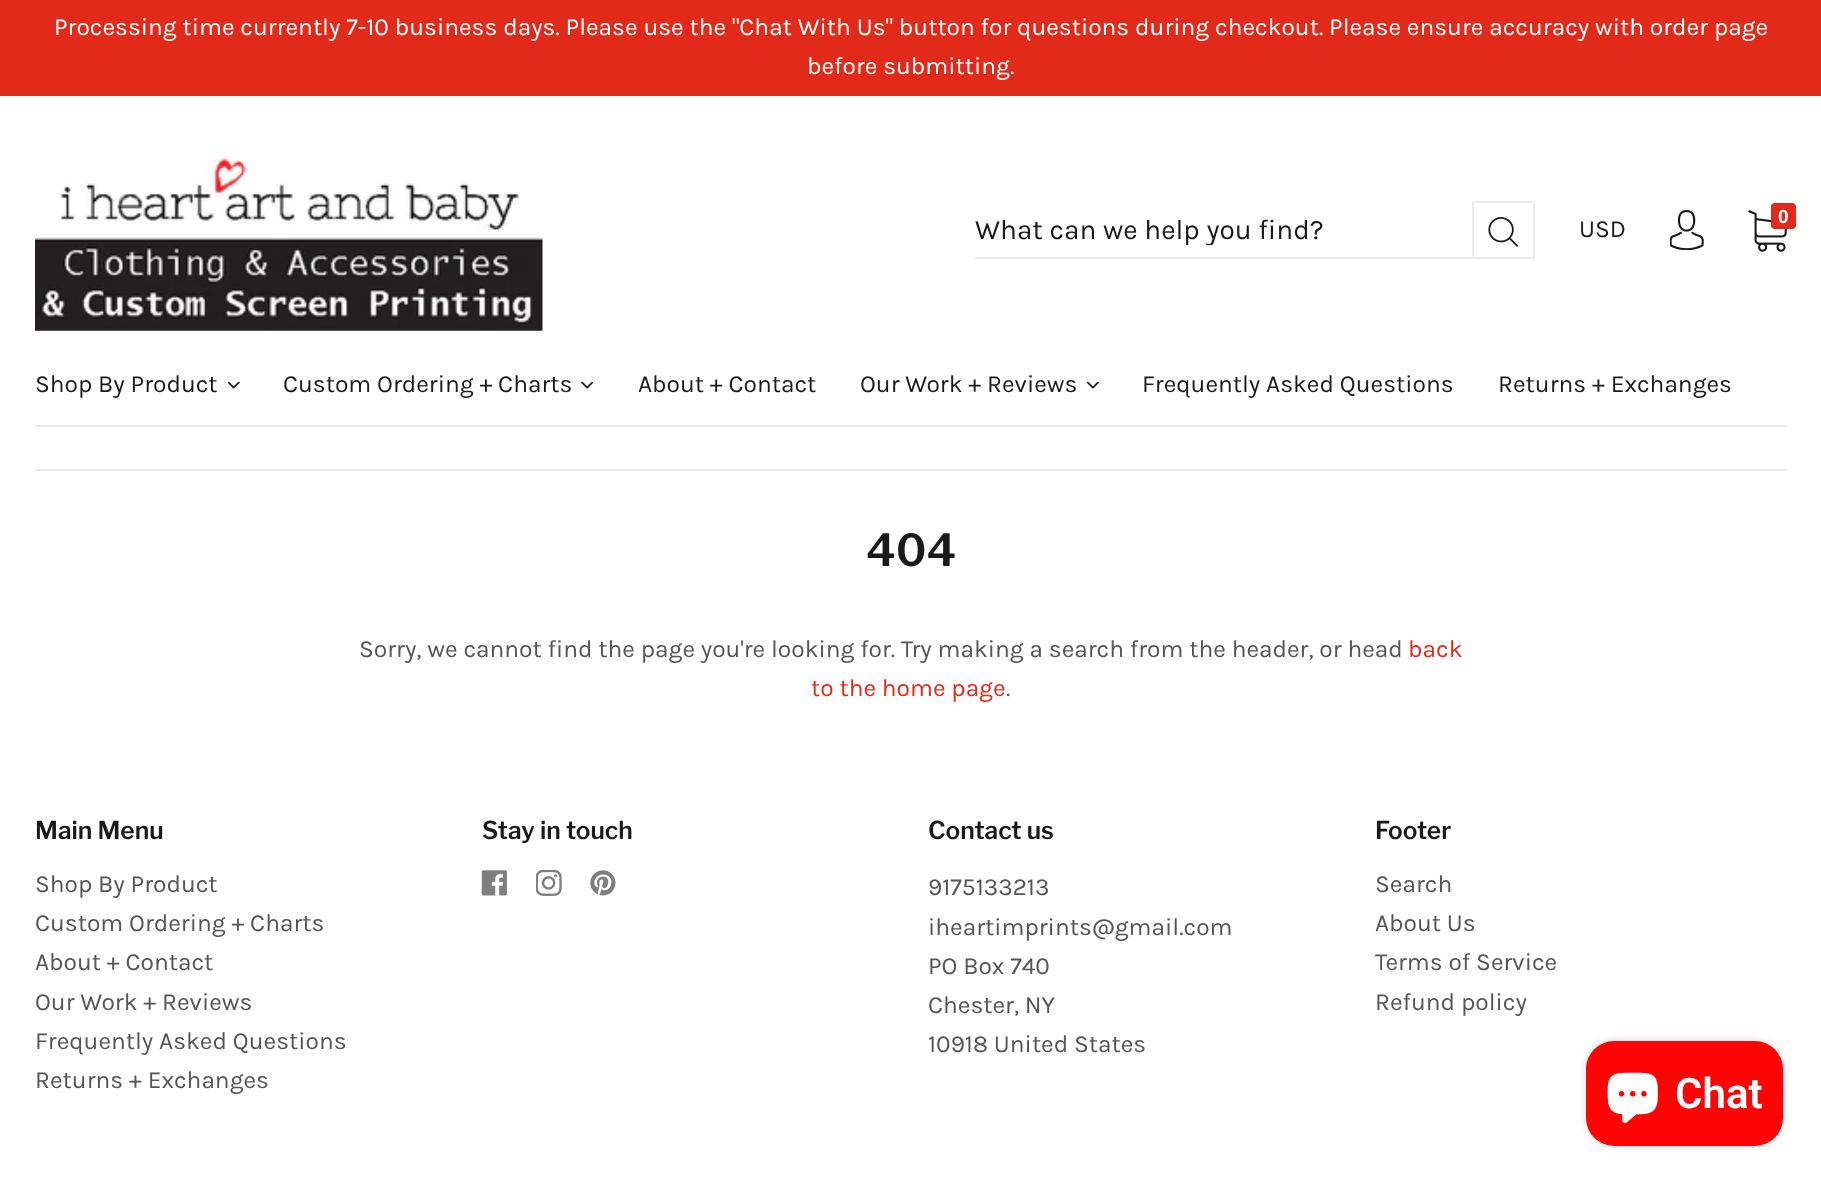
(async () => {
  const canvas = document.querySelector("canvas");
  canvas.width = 1821;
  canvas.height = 1183;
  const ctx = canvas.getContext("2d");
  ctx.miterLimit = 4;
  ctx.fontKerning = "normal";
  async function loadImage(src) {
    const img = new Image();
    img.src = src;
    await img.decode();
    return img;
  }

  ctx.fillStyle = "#ffffff";
  ctx.fillRect(0, 0, 1821, 1183);
  ctx.fillStyle = "#e12a19";
  ctx.fillRect(0, 0, 1821, 96);
  ctx.drawImage(await loadImage("img/1.png"), 35, 157, 508, 174);
  for (const [x, y, w, h, color] of [
    [975, 257, 560, 2, "#ebebeb"],
    [1472, 201, 63, 2, "#ebebeb"],
    [1533, 201, 2, 58, "#ebebeb"],
    [1472, 201, 2, 58, "#ebebeb"],
  ]) {
    ctx.fillStyle = color;
    ctx.fillRect(x, y, w, h);
  }
  ctx.drawImage(await loadImage("img/2.png"), 1488, 217, 31, 30);
  ctx.drawImage(await loadImage("img/3.png"), 1670, 210, 34, 40);
  ctx.drawImage(await loadImage("img/4.png"), 1748, 210, 39, 42);
  ctx.fillStyle = "#e12a19";
  ctx.beginPath();
  ctx.roundRect(1771, 203, 25, 26, 4);
  ctx.fill();
  ctx.fillStyle = "#ebebeb";
  ctx.fillRect(35, 425, 1752, 2);
  ctx.drawImage(await loadImage("img/5.png"), 228, 382, 12, 7);
  ctx.drawImage(await loadImage("img/6.png"), 581, 382, 12, 7);
  ctx.drawImage(await loadImage("img/7.png"), 1087, 382, 12, 7);
  ctx.fillRect(35, 469, 1752, 2);
  ctx.drawImage(await loadImage("img/8.png"), 481, 870, 26, 26);
  ctx.drawImage(await loadImage("img/9.png"), 536, 870, 26, 26);
  ctx.drawImage(await loadImage("img/10.png"), 590, 870, 26, 26);
  ctx.fillStyle = "rgba(0, 0, 0, 0.15)";
  ctx.filter = "blur(4.5px)";
  ctx.beginPath();
  ctx.roundRect(1586, 1041, 197, 105, 28);
  ctx.fill();
  ctx.filter = "none";
  ctx.fillStyle = "#ff0404";
  ctx.beginPath();
  ctx.roundRect(1586, 1041, 197, 105, 28);
  ctx.fill();
  ctx.drawImage(await loadImage("img/11.png"), 1607, 1072, 51, 52);
  ctx.font = "24.5px Karla";
  ctx.fillStyle = "#ffffff";
  ctx.fillText("Processing time currently 7-10 business days. Please use the \"Chat With Us\" button for questions during checkout. Please ensure accuracy with order page", 54, 35);
  ctx.fillText("before submitting.", 807, 74);
  ctx.save();
  ctx.beginPath();
  ctx.rect(975, 212, 560, 33);
  ctx.clip();
  ctx.font = "28px Karla";
  ctx.fillStyle = "#1a1a1a";
  ctx.fillText("What can we help you find?", 975, 239);
  ctx.restore();
  ctx.fillStyle = "#1a1a1a";
  ctx.fillText("USD", 1579, 237);
  ctx.font = "bold 19px Liberation Sans";
  ctx.fillStyle = "#ffffff";
  ctx.fillText("0", 1778, 223);
  ctx.font = "24.5px Karla";
  ctx.fillStyle = "#1a1a1a";
  for (const [text, x, y] of [
    ["Shop By Product", 35, 392],
    ["Custom Ordering + Charts", 283, 392],
    ["About + Contact", 638, 392],
    ["Our Work + Reviews", 860, 392],
    ["Frequently Asked Questions", 1142, 392],
    ["Returns + Exchanges", 1498, 392],
  ]) {
    ctx.fillText(text, x, y);
  }
  ctx.font = "600 44px Libre Franklin";
  ctx.fillText("404", 866, 566);
  ctx.font = "24.5px Karla";
  ctx.fillStyle = "#555555";
  ctx.fillText("Sorry, we cannot find the page you're looking for. Try making a search from the header, or head", 359, 657);
  ctx.fillStyle = "#e12a19";
  ctx.fillText("back", 1408, 657);
  ctx.fillText("to the home page", 811, 696);
  ctx.fillStyle = "#555555";
  ctx.fillText(".", 1006, 696);
  ctx.font = "600 24.5px Libre Franklin";
  ctx.fillStyle = "#1a1a1a";
  ctx.fillText("Main Menu", 35, 839);
  ctx.font = "24.5px Karla";
  ctx.fillStyle = "#555555";
  for (const [text, x, y] of [
    ["Shop By Product", 35, 892],
    ["Custom Ordering + Charts", 35, 931],
    ["About + Contact", 35, 970],
    ["Our Work + Reviews", 35, 1010],
    ["Frequently Asked Questions", 35, 1049],
    ["Returns + Exchanges", 35, 1088],
  ]) {
    ctx.fillText(text, x, y);
  }
  ctx.font = "600 24.5px Libre Franklin";
  ctx.fillStyle = "#1a1a1a";
  ctx.fillText("Stay in touch", 482, 839);
  ctx.fillText("Contact us", 928, 839);
  ctx.font = "24.5px Karla";
  ctx.fillStyle = "#555555";
  for (const [text, x, y] of [
    ["9175133213", 928, 895],
    ["iheartimprints@gmail.com", 928, 935],
    ["PO Box 740", 928, 974],
    ["Chester, NY", 928, 1013],
    ["10918 United States", 928, 1052],
  ]) {
    ctx.fillText(text, x, y);
  }
  ctx.font = "600 24.5px Libre Franklin";
  ctx.fillStyle = "#1a1a1a";
  ctx.fillText("Footer", 1375, 839);
  ctx.font = "24.5px Karla";
  ctx.fillStyle = "#555555";
  for (const [text, x, y] of [
    ["Search", 1375, 892],
    ["About Us", 1375, 931],
    ["Terms of Service", 1375, 970],
    ["Refund policy", 1375, 1010],
  ]) {
    ctx.fillText(text, x, y);
  }
  ctx.font = "600 42px Roboto";
  ctx.fillStyle = "#ffffff";
  ctx.fillText("Chat", 1675, 1108);
})();
